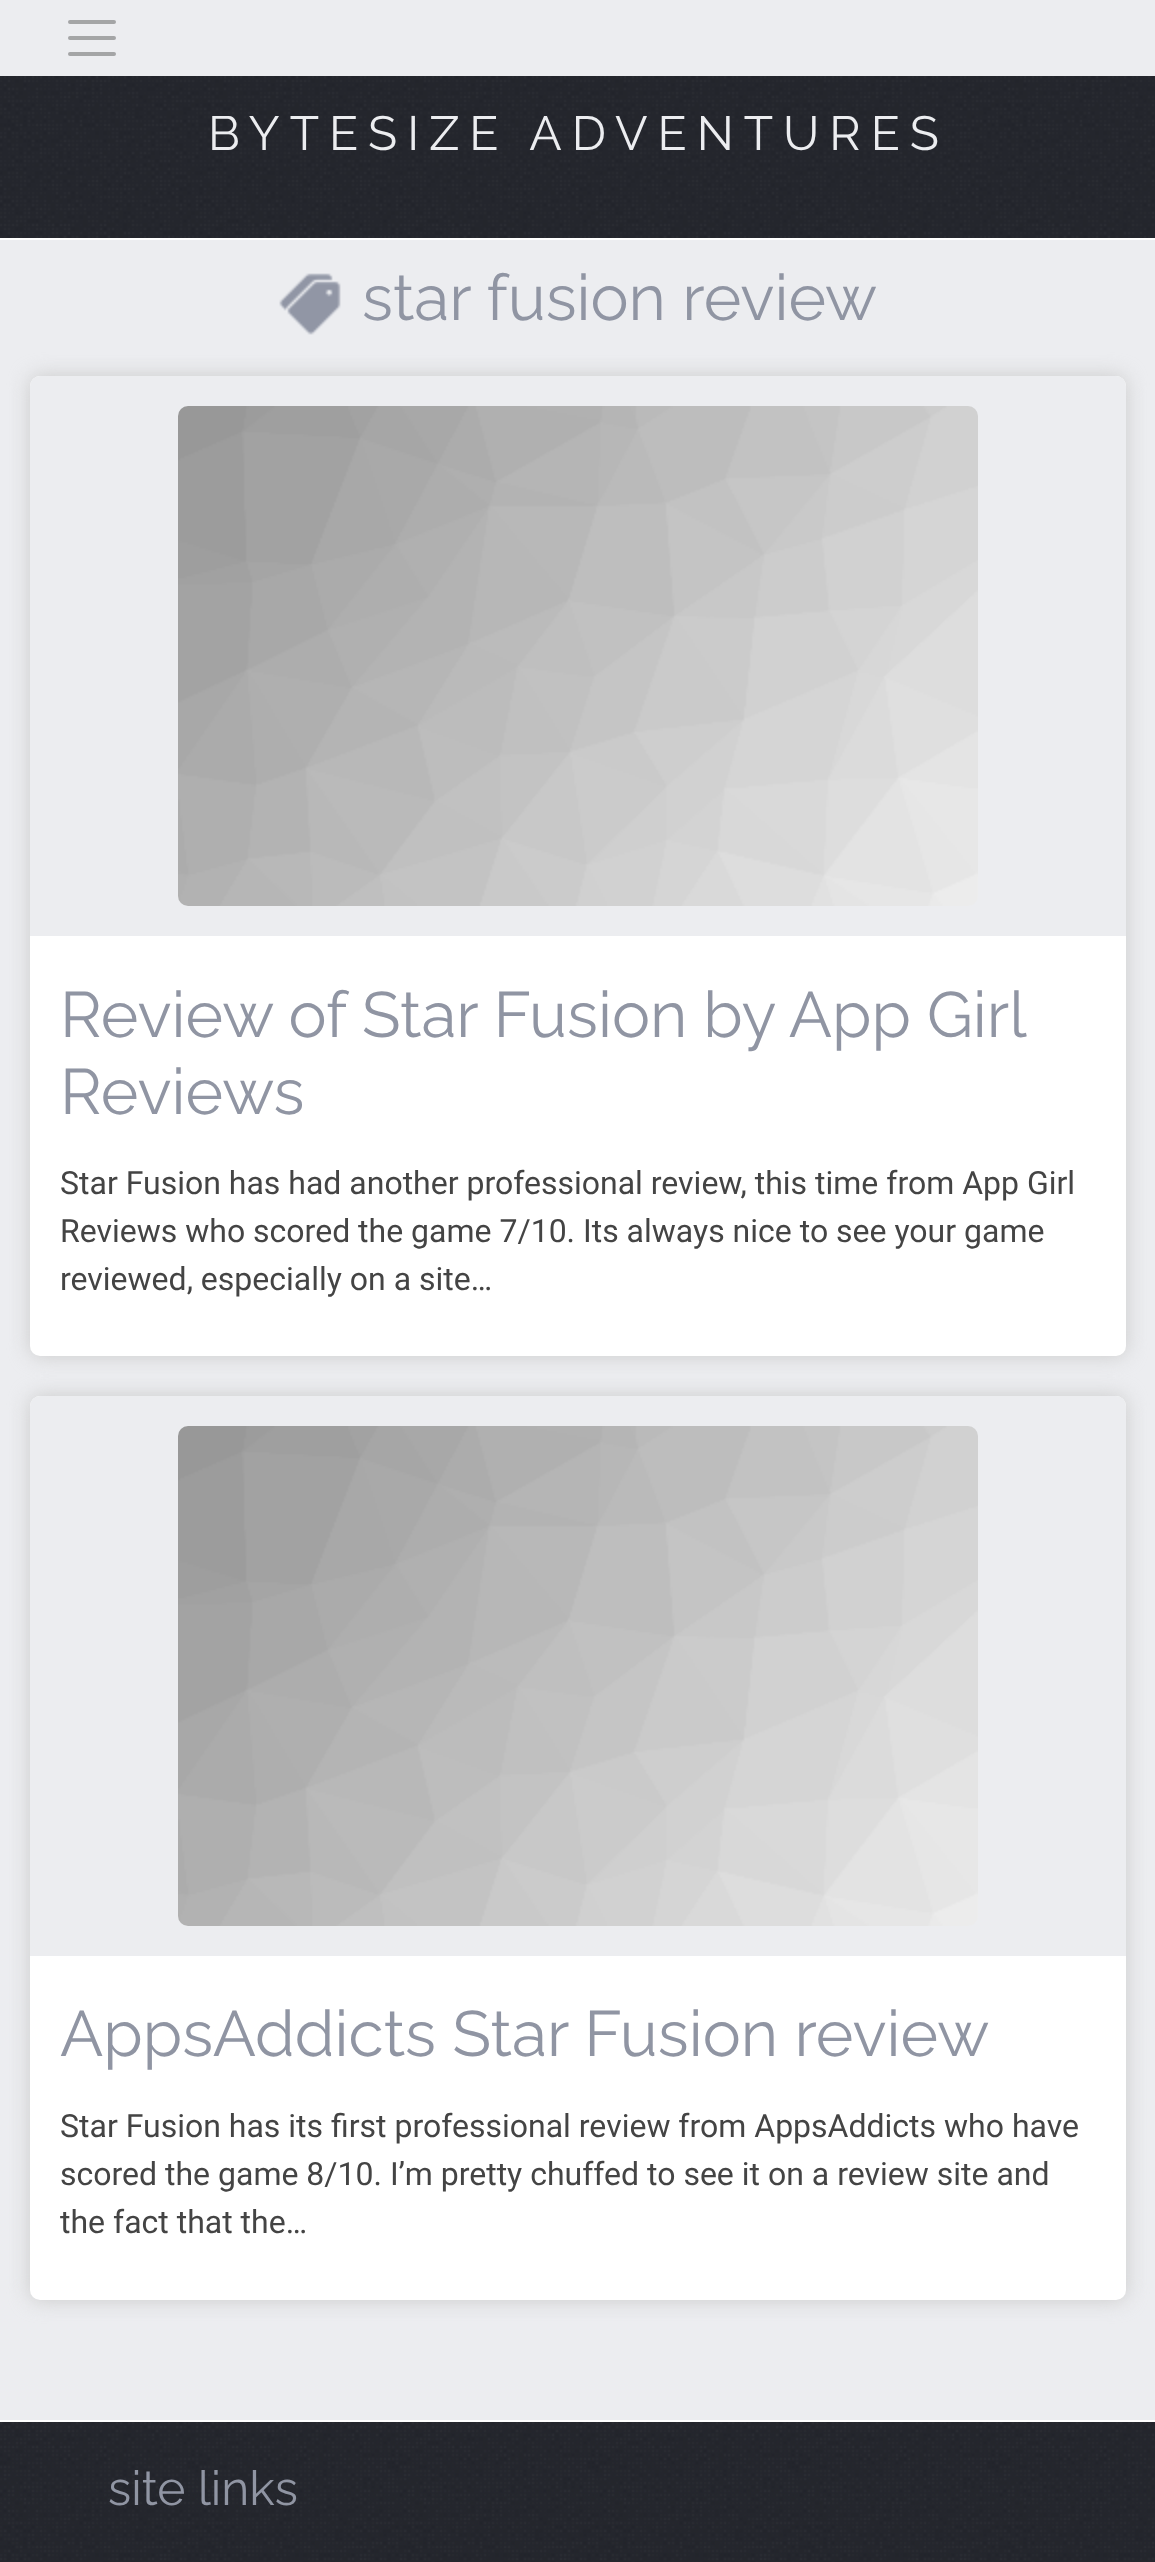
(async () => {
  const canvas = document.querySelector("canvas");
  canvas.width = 1155;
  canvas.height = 2562;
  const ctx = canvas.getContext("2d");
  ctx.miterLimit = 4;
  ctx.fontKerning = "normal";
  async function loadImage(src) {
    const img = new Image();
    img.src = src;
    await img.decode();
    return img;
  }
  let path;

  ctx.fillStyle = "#ecedf0";
  ctx.fillRect(0, 0, 1155, 2562);
  path = new Path2D("M70 22H114M70 38H114M70 54H114");
  ctx.strokeStyle = "#a4a5a6";
  ctx.lineWidth = 4;
  ctx.lineCap = "round";
  ctx.stroke(path);
  ctx.drawImage(await loadImage("img/1.png"), 0, 76, 1155, 162);
  ctx.fillStyle = "#ffffff";
  ctx.fillRect(0, 238, 1155, 2);
  ctx.drawImage(await loadImage("img/2.png"), 279, 273, 62, 62);
  ctx.fillStyle = "#cacaca";
  ctx.filter = "blur(10px)";
  ctx.beginPath();
  ctx.roundRect(30, 376, 1096, 980, 10);
  ctx.fill();
  ctx.filter = "none";
  ctx.fillStyle = "#ffffff";
  ctx.beginPath();
  ctx.roundRect(30, 376, 1096, 980, 10);
  ctx.fill();
  ctx.fillStyle = "#ecedf0";
  ctx.beginPath();
  ctx.roundRect(30, 376, 1096, 560, [10, 10, 0, 0]);
  ctx.fill();
  ctx.drawImage(await loadImage("img/3.png"), 178, 406, 800, 500);
  ctx.fillStyle = "#cacaca";
  ctx.filter = "blur(10px)";
  ctx.beginPath();
  ctx.roundRect(30, 1396, 1096, 904, 10);
  ctx.fill();
  ctx.filter = "none";
  ctx.fillStyle = "#ffffff";
  ctx.beginPath();
  ctx.roundRect(30, 1396, 1096, 904, 10);
  ctx.fill();
  ctx.fillStyle = "#ecedf0";
  ctx.beginPath();
  ctx.roundRect(30, 1396, 1096, 560, [10, 10, 0, 0]);
  ctx.fill();
  ctx.drawImage(await loadImage("img/3.png"), 178, 1426, 800, 500);
  ctx.drawImage(await loadImage("img/4.png"), 0, 2422, 1155, 140);
  ctx.fillStyle = "#ffffff";
  ctx.fillRect(0, 2420, 1155, 2);
  ctx.letterSpacing = "10px";
  ctx.font = "48px Raleway";
  ctx.fillStyle = "#ecedf0";
  ctx.fillText("BYTESIZE ADVENTURES", 208, 150);
  ctx.letterSpacing = "0px";
  ctx.font = "64px Raleway";
  ctx.fillStyle = "#9095a3";
  ctx.fillText("star fusion review", 362, 320);
  ctx.wordSpacing = "-0.25px";
  ctx.fillText("Review of Star Fusion by App Girl", 60, 1037);
  ctx.wordSpacing = "0px";
  ctx.fillText("Reviews", 60, 1114);
  ctx.font = "32px Roboto";
  ctx.fillStyle = "#444444";
  for (const [text, x, y] of [
    ["Star Fusion has had another professional review, this time from App Girl", 60, 1194],
    ["Reviews who scored the game 7/10. Its always nice to see your game", 60, 1242],
    ["reviewed, especially on a site…", 60, 1290],
  ]) {
    ctx.fillText(text, x, y);
  }
  ctx.font = "64px Raleway";
  ctx.fillStyle = "#9095a3";
  ctx.fillText("AppsAddicts Star Fusion review", 60, 2056);
  ctx.font = "32px Roboto";
  ctx.fillStyle = "#444444";
  for (const [text, x, y] of [
    ["Star Fusion has its first professional review from AppsAddicts who have", 60, 2137],
    ["scored the game 8/10. I’m pretty chuffed to see it on a review site and", 60, 2185],
    ["the fact that the…", 60, 2233],
  ]) {
    ctx.fillText(text, x, y);
  }
  ctx.font = "48px Raleway";
  ctx.fillStyle = "#9095a3";
  ctx.fillText("site links", 108, 2505);
})();
